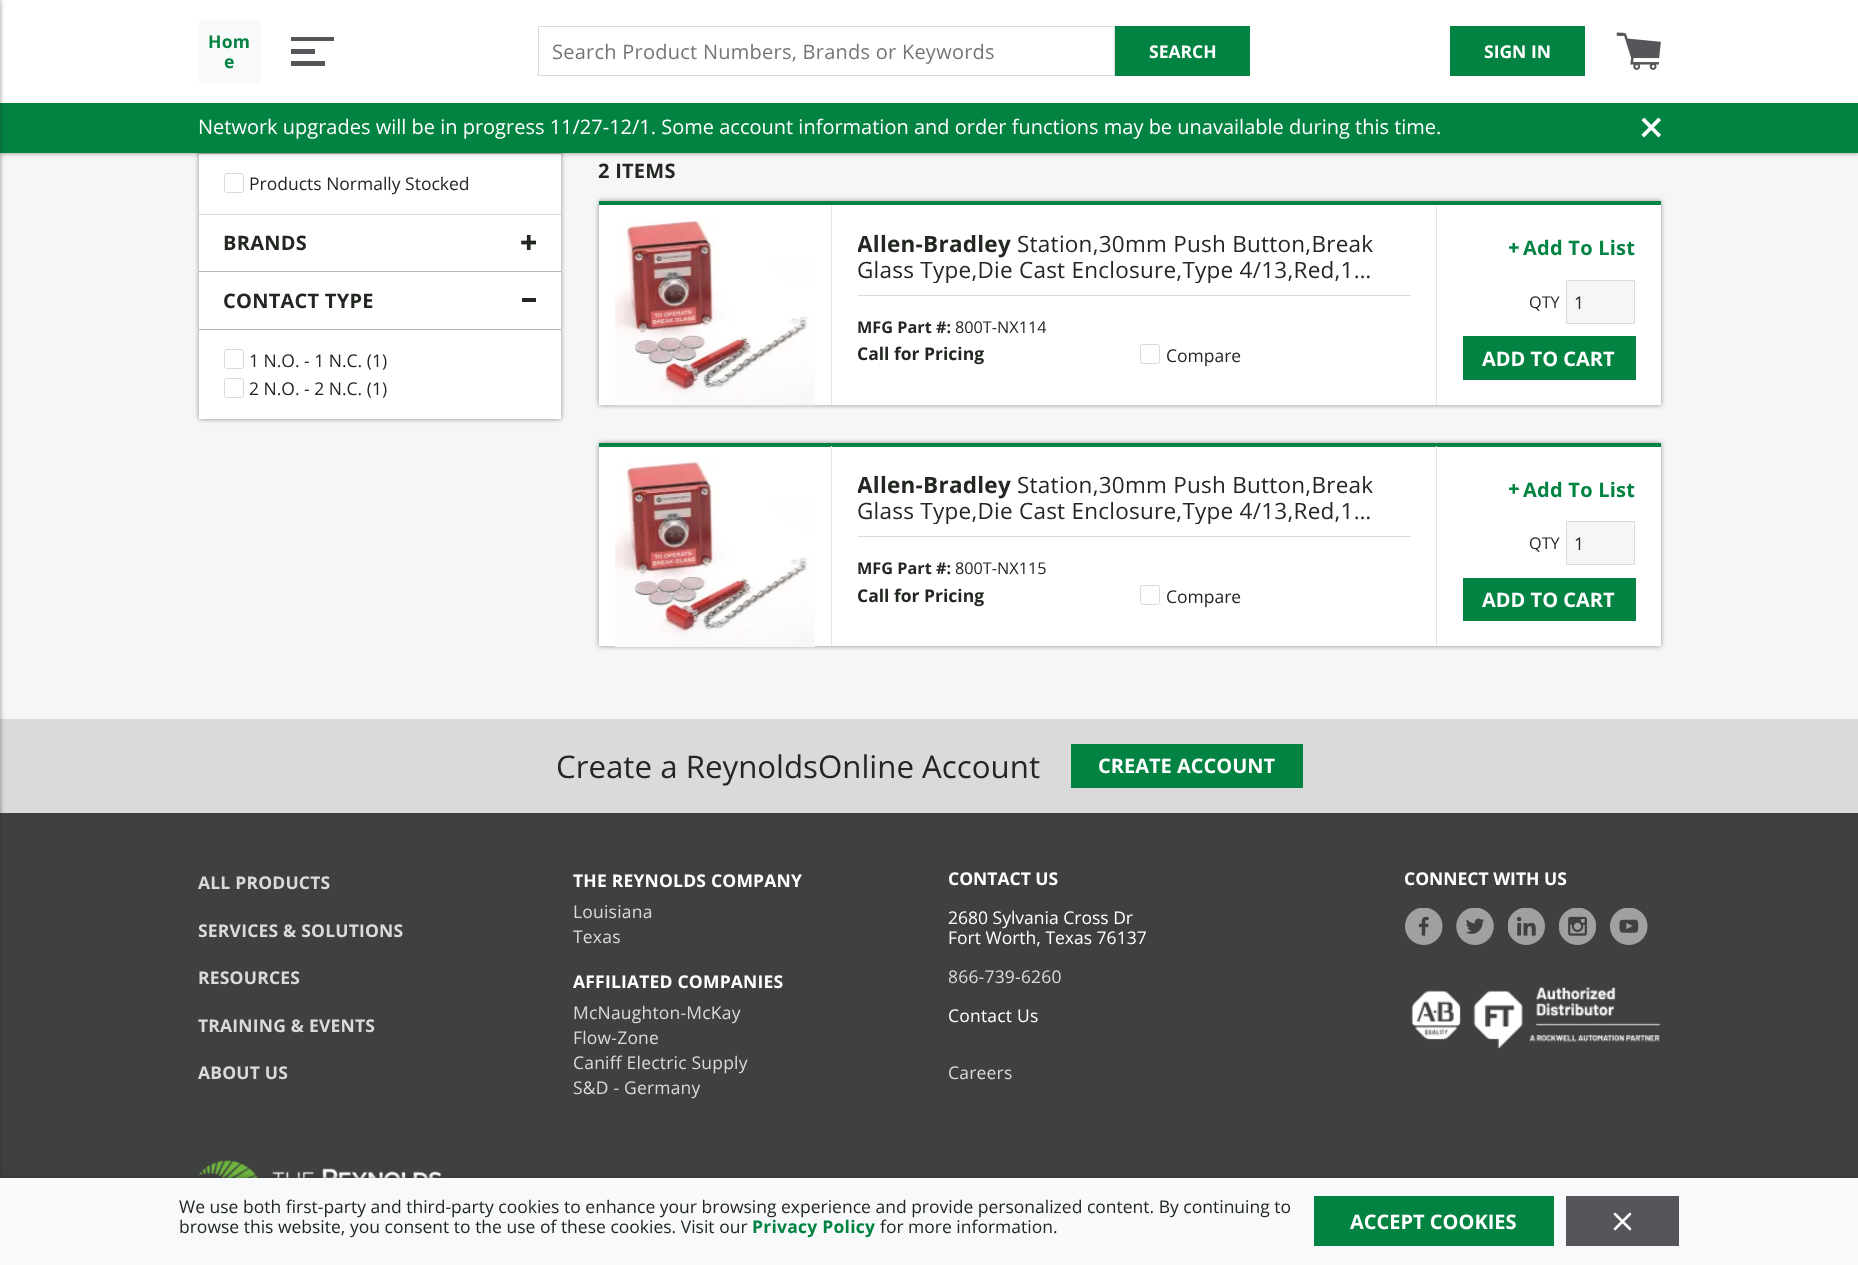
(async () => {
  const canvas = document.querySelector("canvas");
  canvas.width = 1858;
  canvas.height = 1265;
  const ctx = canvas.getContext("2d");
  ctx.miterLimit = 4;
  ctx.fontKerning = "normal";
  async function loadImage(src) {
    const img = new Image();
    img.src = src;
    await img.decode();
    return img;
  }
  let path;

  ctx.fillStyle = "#f6f6f6";
  ctx.fillRect(0, 0, 1858, 1265);
  ctx.fillStyle = "rgba(33, 33, 33, 0.5)";
  ctx.filter = "blur(2.5px)";
  ctx.beginPath();
  ctx.rect(199, 93, 362, 326);
  ctx.fill();
  ctx.filter = "none";
  ctx.fillStyle = "#ffffff";
  ctx.fillRect(199, 154, 362, 265);
  ctx.fillStyle = "#b7b7b7";
  ctx.fillRect(199, 153, 362, 1);
  ctx.fillStyle = "rgba(33, 33, 33, 0.5)";
  ctx.filter = "blur(2.5px)";
  ctx.beginPath();
  ctx.rect(0, 0, 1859, 153);
  ctx.fill();
  ctx.filter = "none";
  for (const [x, y, w, h, color] of [
    [0, 0, 1858, 103, "#ffffff"],
    [0, 103, 1858, 50, "#028342"],
    [0, 719, 1858, 94, "#dadada"],
    [0, 813, 1858, 365, "#3f4040"],
  ]) {
    ctx.fillStyle = color;
    ctx.fillRect(x, y, w, h);
  }
  ctx.fillStyle = "rgba(33, 33, 33, 0.5)";
  ctx.filter = "blur(2.5px)";
  ctx.beginPath();
  ctx.rect(-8, 0, 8, 1265);
  ctx.fill();
  ctx.filter = "none";
  ctx.fillStyle = "#f8f9fa";
  ctx.fillRect(199, 20, 62, 63);
  ctx.fillStyle = "#55565a";
  path = new Path2D("M325 61V66H291V61ZM315 49V54H291V49ZM334 37V41H291V37Z");
  ctx.fill(path, "evenodd");
  ctx.strokeStyle = "#dadada";
  ctx.strokeRect(538.5, 26.5, 576, 49);
  ctx.fillStyle = "#028342";
  ctx.fillRect(1115, 26, 135, 50);
  ctx.fillRect(1450, 26, 135, 50);
  ctx.drawImage(await loadImage("img/1.png"), 1616, 32, 45, 38);
  ctx.drawImage(await loadImage("img/2.png"), 1641, 118, 20, 20);
  ctx.fillStyle = "#dadada";
  ctx.fillRect(199, 214, 362, 1);
  ctx.beginPath();
  ctx.roundRect(224.5, 173.5, 19, 19, 2);
  ctx.stroke();
  ctx.fillStyle = "#b7b7b7";
  ctx.fillRect(199, 271, 362, 1);
  ctx.drawImage(await loadImage("img/3.png"), 521, 235, 15, 15);
  ctx.fillRect(199, 329, 362, 1);
  ctx.fillStyle = "#222721";
  ctx.fillRect(522, 298, 14, 4);
  ctx.beginPath();
  ctx.roundRect(224.5, 349.5, 19, 19, 2);
  ctx.stroke();
  ctx.beginPath();
  ctx.roundRect(224.5, 378.5, 19, 19, 2);
  ctx.stroke();
  ctx.fillStyle = "rgba(33, 33, 33, 0.5)";
  ctx.filter = "blur(2.5px)";
  ctx.beginPath();
  ctx.rect(599, 201, 1062, 204);
  ctx.fill();
  ctx.filter = "none";
  for (const [x, y, w, h, color] of [
    [599, 205, 1062, 200, "#ffffff"],
    [599, 201, 1062, 4, "#028342"],
    [831, 205, 1, 200, "#e6e6e6"],
  ]) {
    ctx.fillStyle = color;
    ctx.fillRect(x, y, w, h);
  }
  ctx.drawImage(await loadImage("img/4.png"), 615, 218, 200, 188);
  ctx.fillStyle = "#dadada";
  ctx.fillRect(858, 295, 553, 1);
  ctx.beginPath();
  ctx.roundRect(1140.5, 344.5, 19, 19, 2);
  ctx.stroke();
  ctx.fillStyle = "#e6e6e6";
  ctx.fillRect(1436, 205, 1, 200);
  ctx.drawImage(await loadImage("img/5.png"), 1509, 243, 10, 10);
  ctx.fillStyle = "#f6f6f6";
  ctx.beginPath();
  ctx.rect(1566.5, 280.5, 68, 43);
  ctx.fill();
  ctx.stroke();
  ctx.fillStyle = "#028342";
  ctx.fillRect(1463, 336, 173, 44);
  ctx.fillStyle = "rgba(33, 33, 33, 0.5)";
  ctx.filter = "blur(2.5px)";
  ctx.beginPath();
  ctx.rect(599, 443, 1062, 203);
  ctx.fill();
  ctx.filter = "none";
  for (const [x, y, w, h, color] of [
    [599, 447, 1062, 199, "#ffffff"],
    [599, 443, 1062, 4, "#028342"],
    [831, 446, 1, 200, "#e6e6e6"],
  ]) {
    ctx.fillStyle = color;
    ctx.fillRect(x, y, w, h);
  }
  ctx.drawImage(await loadImage("img/6.png"), 615, 459, 200, 188);
  ctx.fillStyle = "#dadada";
  ctx.fillRect(858, 536, 553, 1);
  ctx.beginPath();
  ctx.roundRect(1140.5, 585.5, 19, 19, 2);
  ctx.stroke();
  ctx.fillStyle = "#e6e6e6";
  ctx.fillRect(1436, 446, 1, 200);
  ctx.drawImage(await loadImage("img/7.png"), 1509, 484, 10, 10);
  ctx.fillStyle = "#f6f6f6";
  ctx.beginPath();
  ctx.rect(1566.5, 521.5, 68, 43);
  ctx.fill();
  ctx.stroke();
  ctx.fillStyle = "#028342";
  ctx.fillRect(1463, 578, 173, 43);
  ctx.fillRect(1071, 744, 232, 44);
  ctx.drawImage(await loadImage("img/8.png"), 1405, 908, 38, 37);
  ctx.drawImage(await loadImage("img/9.png"), 1456, 908, 38, 37);
  ctx.drawImage(await loadImage("img/10.png"), 1508, 908, 37, 37);
  ctx.drawImage(await loadImage("img/11.png"), 1559, 908, 37, 37);
  ctx.drawImage(await loadImage("img/12.png"), 1610, 908, 38, 37);
  ctx.drawImage(await loadImage("img/13.png"), 1411, 987, 250, 62);
  ctx.drawImage(await loadImage("img/14.png"), 198, 1160, 244, 18);
  ctx.fillStyle = "rgba(33, 33, 33, 0.5)";
  ctx.filter = "blur(2.5px)";
  ctx.beginPath();
  ctx.rect(0, 1178, 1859, 87);
  ctx.fill();
  ctx.filter = "none";
  for (const [x, y, w, h, color] of [
    [0, 1178, 1858, 87, "#f8f9fa"],
    [1314, 1196, 240, 50, "#028342"],
    [1566, 1196, 113, 50, "#55565a"],
  ]) {
    ctx.fillStyle = color;
    ctx.fillRect(x, y, w, h);
  }
  path = new Path2D("M1630 1214L1615 1229M1615 1214L1630 1229");
  ctx.strokeStyle = "#ffffff";
  ctx.lineWidth = 2.5;
  ctx.lineCap = "round";
  ctx.lineJoin = "round";
  ctx.stroke(path);
  ctx.letterSpacing = "0.25px";
  ctx.font = "bold 17.5px Open Sans";
  ctx.fillStyle = "#028342";
  ctx.fillText("Hom", 208, 48);
  ctx.fillText("e", 224, 68);
  ctx.font = "20px Open Sans";
  ctx.fillStyle = "#757575";
  ctx.fillText("Search Product Numbers, Brands or Keywords", 552, 59);
  ctx.letterSpacing = "0px";
  ctx.font = "bold 17.5px Open Sans";
  ctx.fillStyle = "#ffffff";
  ctx.fillText("SEARCH", 1149, 58);
  ctx.fillText("SIGN IN", 1484, 58);
  ctx.font = "20px Open Sans";
  ctx.fillText("Network upgrades will be in progress 11/27-12/1. Some account information and order functions may be unavailable during this time.", 198, 134);
  ctx.font = "17.5px Open Sans";
  ctx.fillStyle = "#222721";
  ctx.fillText("Products Normally Stocked", 249, 190);
  ctx.letterSpacing = "0.25px";
  ctx.font = "bold 20px Open Sans";
  ctx.fillText("BRANDS", 223, 250);
  ctx.fillText("CONTACT TYPE", 223, 308);
  ctx.letterSpacing = "0px";
  ctx.font = "17.5px Open Sans";
  ctx.fillText("1 N.O. - 1 N.C. (1)", 249, 367);
  ctx.fillText("2 N.O. - 2 N.C. (1)", 249, 395);
  ctx.letterSpacing = "0.25px";
  ctx.font = "bold 20px Open Sans";
  ctx.fillText("2 ITEMS", 598, 178);
  ctx.save();
  ctx.beginPath();
  ctx.rect(858, 230, 553, 53);
  ctx.clip();
  ctx.font = "bold 22.5px Open Sans";
  ctx.fillText("Allen-Bradley", 857, 252);
  ctx.restore();
  ctx.font = "22.5px Open Sans";
  ctx.fillText("Station,30mm Push Button,Break", 1017, 252);
  ctx.save();
  ctx.beginPath();
  ctx.rect(858, 230, 553, 53);
  ctx.clip();
  ctx.fillText("Glass Type,Die Cast Enclosure,Type 4/13,Red,1…", 857, 278);
  ctx.restore();
  ctx.letterSpacing = "0px";
  ctx.font = "bold 16.25px Open Sans";
  ctx.fillText("MFG Part #:", 857, 333);
  ctx.font = "16.25px Open Sans";
  ctx.fillText("800T-NX114", 955, 333);
  ctx.font = "bold 17.5px Open Sans";
  ctx.fillText("Call for Pricing", 857, 360);
  ctx.font = "17.5px Open Sans";
  ctx.fillText("Compare", 1166, 362);
  ctx.letterSpacing = "0.25px";
  ctx.font = "bold 20px Open Sans";
  ctx.fillStyle = "#028342";
  ctx.fillText("Add To List", 1523, 255);
  ctx.letterSpacing = "0px";
  ctx.font = "16.25px Open Sans";
  ctx.fillStyle = "#222721";
  ctx.fillText("QTY", 1529, 308);
  ctx.letterSpacing = "0.25px";
  ctx.font = "17.5px Open Sans";
  ctx.fillText("1", 1574, 309);
  ctx.letterSpacing = "0px";
  ctx.font = "bold 20px Open Sans";
  ctx.fillStyle = "#ffffff";
  ctx.fillText("ADD TO CART", 1482, 366);
  ctx.save();
  ctx.beginPath();
  ctx.rect(858, 471, 553, 53);
  ctx.clip();
  ctx.letterSpacing = "0.25px";
  ctx.font = "bold 22.5px Open Sans";
  ctx.fillStyle = "#222721";
  ctx.fillText("Allen-Bradley", 857, 493);
  ctx.restore();
  ctx.letterSpacing = "0.25px";
  ctx.font = "22.5px Open Sans";
  ctx.fillStyle = "#222721";
  ctx.fillText("Station,30mm Push Button,Break", 1017, 493);
  ctx.save();
  ctx.beginPath();
  ctx.rect(858, 471, 553, 53);
  ctx.clip();
  ctx.fillText("Glass Type,Die Cast Enclosure,Type 4/13,Red,1…", 857, 519);
  ctx.restore();
  ctx.letterSpacing = "0px";
  ctx.font = "bold 16.25px Open Sans";
  ctx.fillText("MFG Part #:", 857, 574);
  ctx.font = "16.25px Open Sans";
  ctx.fillText("800T-NX115", 955, 574);
  ctx.font = "bold 17.5px Open Sans";
  ctx.fillText("Call for Pricing", 857, 602);
  ctx.font = "17.5px Open Sans";
  ctx.fillText("Compare", 1166, 603);
  ctx.letterSpacing = "0.25px";
  ctx.font = "bold 20px Open Sans";
  ctx.fillStyle = "#028342";
  ctx.fillText("Add To List", 1523, 497);
  ctx.letterSpacing = "0px";
  ctx.font = "16.25px Open Sans";
  ctx.fillStyle = "#222721";
  ctx.fillText("QTY", 1529, 549);
  ctx.letterSpacing = "0.25px";
  ctx.font = "17.5px Open Sans";
  ctx.fillText("1", 1574, 550);
  ctx.letterSpacing = "0px";
  ctx.font = "bold 20px Open Sans";
  ctx.fillStyle = "#ffffff";
  ctx.fillText("ADD TO CART", 1482, 607);
  ctx.font = "31.25px Open Sans";
  ctx.fillStyle = "#222721";
  ctx.fillText("Create a ReynoldsOnline Account", 556, 778);
  ctx.font = "bold 20px Open Sans";
  ctx.fillStyle = "#ffffff";
  ctx.fillText("CREATE ACCOUNT", 1098, 773);
  ctx.letterSpacing = "0.2px";
  ctx.font = "bold 17.5px Open Sans";
  ctx.fillStyle = "#dadada";
  for (const [text, x, y] of [
    ["ALL PRODUCTS", 198, 889],
    ["SERVICES & SOLUTIONS", 198, 937],
    ["RESOURCES", 198, 984],
    ["TRAINING & EVENTS", 198, 1032],
    ["ABOUT US", 198, 1079],
  ]) {
    ctx.fillText(text, x, y);
  }
  ctx.fillStyle = "#ffffff";
  ctx.fillText("THE REYNOLDS COMPANY", 573, 887);
  ctx.font = "17.5px Open Sans";
  ctx.fillStyle = "#dadada";
  ctx.fillText("Louisiana", 573, 918);
  ctx.fillText("Texas", 573, 943);
  ctx.font = "bold 17.5px Open Sans";
  ctx.fillStyle = "#ffffff";
  ctx.fillText("AFFILIATED COMPANIES", 573, 988);
  ctx.font = "17.5px Open Sans";
  ctx.fillStyle = "#dadada";
  for (const [text, x, y] of [
    ["McNaughton-McKay", 573, 1019],
    ["Flow-Zone", 573, 1044],
    ["Caniff Electric Supply", 573, 1069],
    ["S&D - Germany", 573, 1094],
  ]) {
    ctx.fillText(text, x, y);
  }
  ctx.letterSpacing = "0px";
  ctx.font = "bold 17.5px Open Sans";
  ctx.fillStyle = "#ffffff";
  ctx.fillText("CONTACT US", 948, 885);
  ctx.font = "17.5px Open Sans";
  ctx.fillText("2680 Sylvania Cross Dr", 948, 924);
  ctx.fillText("Fort Worth, Texas 76137", 948, 944);
  ctx.letterSpacing = "0.2px";
  ctx.fillStyle = "#dadada";
  ctx.fillText("866-739-6260", 948, 983);
  ctx.fillStyle = "#ffffff";
  ctx.fillText("Contact Us", 948, 1022);
  ctx.fillStyle = "#dadada";
  ctx.fillText("Careers", 948, 1079);
  ctx.letterSpacing = "0px";
  ctx.font = "bold 17.5px Open Sans";
  ctx.fillStyle = "#ffffff";
  ctx.fillText("CONNECT WITH US", 1404, 885);
  ctx.font = "17.5px Open Sans";
  ctx.fillStyle = "#222721";
  ctx.fillText("We use both first-party and third-party cookies to enhance your browsing experience and provide personalized content. By continuing to", 179, 1213);
  ctx.fillText("browse this website, you consent to the use of these cookies. Visit our", 179, 1233);
  ctx.letterSpacing = "0.25px";
  ctx.font = "bold 17.5px Open Sans";
  ctx.fillStyle = "#028342";
  ctx.fillText("Privacy Policy", 752, 1233);
  ctx.letterSpacing = "0px";
  ctx.font = "17.5px Open Sans";
  ctx.fillStyle = "#222721";
  ctx.fillText("for more information.", 880, 1233);
  ctx.font = "bold 20px Open Sans";
  ctx.fillStyle = "#ffffff";
  ctx.fillText("ACCEPT COOKIES", 1350, 1229);
})();
